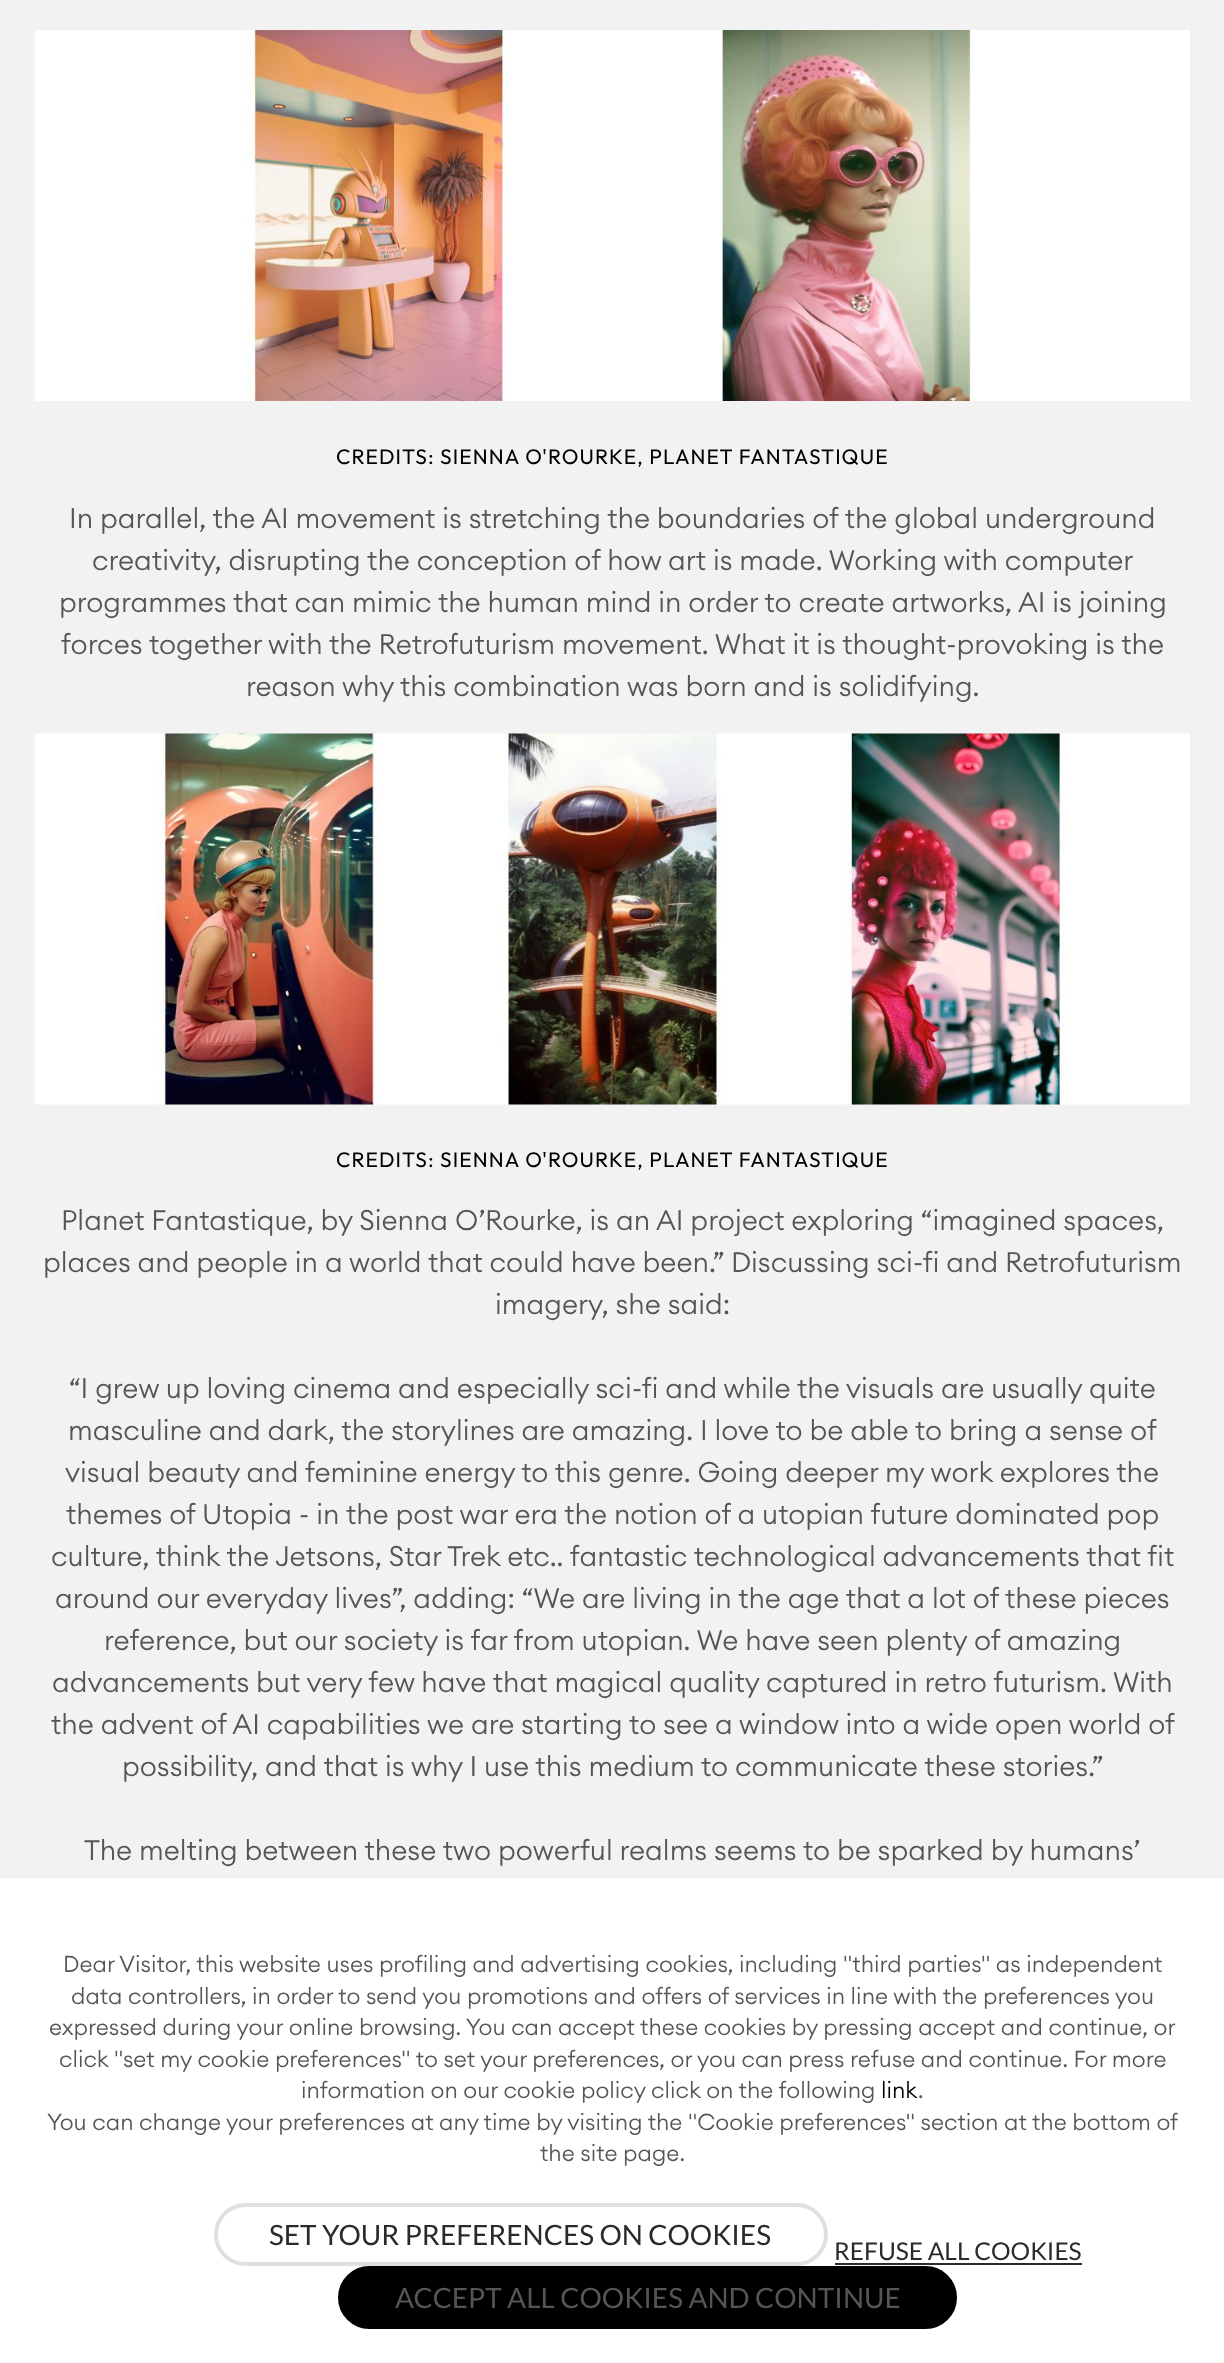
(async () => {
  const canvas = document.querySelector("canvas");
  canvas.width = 1224;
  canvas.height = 2363;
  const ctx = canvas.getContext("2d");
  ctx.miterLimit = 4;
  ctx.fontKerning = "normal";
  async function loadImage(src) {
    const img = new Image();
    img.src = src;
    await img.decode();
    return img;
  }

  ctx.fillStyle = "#f2f2f2";
  ctx.fillRect(0, 0, 1224, 2363);
  ctx.drawImage(await loadImage("img/1.png"), 35, 30, 1155, 371);
  ctx.drawImage(await loadImage("img/2.png"), 35, 733, 1155, 372);
  ctx.fillStyle = "#ffffff";
  ctx.fillRect(0, 1878, 1224, 485);
  ctx.beginPath();
  ctx.roundRect(216, 2205, 610, 59, 29.5);
  ctx.strokeStyle = "#e0e0e0";
  ctx.lineWidth = 4;
  ctx.stroke();
  ctx.fillStyle = "#2a2a2a";
  ctx.fillRect(835, 2263, 247, 2);
  ctx.fillStyle = "#000000";
  ctx.beginPath();
  ctx.roundRect(340, 2268, 615, 59, 29.5);
  ctx.fill();
  ctx.strokeStyle = "#000000";
  ctx.stroke();
  ctx.letterSpacing = "1.05px";
  ctx.font = "21px Outfit";
  ctx.fillText("CREDITS: SIENNA O'ROURKE, PLANET FANTASTIQUE", 336, 464);
  ctx.letterSpacing = "0px";
  ctx.font = "300 28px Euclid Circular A";
  ctx.fillStyle = "#555555";
  for (const [text, x, y] of [
    ["In parallel, the AI movement is stretching the boundaries of the global underground", 69, 528],
    ["creativity, disrupting the conception of how art is made. Working with computer", 92, 570],
    ["programmes that can mimic the human mind in order to create artworks, AI is joining", 59, 612],
    ["forces together with the Retrofuturism movement. What it is thought-provoking is the", 61, 654],
    ["reason why this combination was born and is solidifying.", 246, 696],
  ]) {
    ctx.fillText(text, x, y);
  }
  ctx.letterSpacing = "1.05px";
  ctx.font = "21px Outfit";
  ctx.fillStyle = "#000000";
  ctx.fillText("CREDITS: SIENNA O'ROURKE, PLANET FANTASTIQUE", 336, 1167);
  ctx.letterSpacing = "0px";
  ctx.font = "300 28px Euclid Circular A";
  ctx.fillStyle = "#555555";
  for (const [text, x, y] of [
    ["Planet Fantastique, by Sienna O’Rourke, is an AI project exploring “imagined spaces,", 61, 1230],
    ["places and people in a world that could have been.” Discussing sci-fi and Retrofuturism", 43, 1272],
    ["imagery, she said:", 495, 1314],
    ["“I grew up loving cinema and especially sci-fi and while the visuals are usually quite", 69, 1398],
    ["masculine and dark, the storylines are amazing. I love to be able to bring a sense of", 68, 1440],
    ["visual beauty and feminine energy to this genre. Going deeper my work explores the", 65, 1482],
    ["themes of Utopia - in the post war era the notion of a utopian future dominated pop", 66, 1524],
    ["culture, think the Jetsons, Star Trek etc.. fantastic technological advancements that fit", 51, 1566],
    ["around our everyday lives”, adding: “We are living in the age that a lot of these pieces", 55, 1608],
    ["reference, but our society is far from utopian. We have seen plenty of amazing", 104, 1650],
    ["advancements but very few have that magical quality captured in retro futurism. With", 52, 1692],
    ["the advent of AI capabilities we are starting to see a window into a wide open world of", 51, 1734],
    ["possibility, and that is why I use this medium to communicate these stories.”", 122, 1776],
    ["The melting between these two powerful realms seems to be sparked by humans’", 84, 1860],
  ]) {
    ctx.fillText(text, x, y);
  }
  ctx.font = "300 22.75px Euclid Circular A";
  for (const [text, x, y] of [
    ["Dear Visitor, this website uses profiling and advertising cookies, including \"third parties\" as independent", 63, 1972],
    ["data controllers, in order to send you promotions and offers of services in line with the preferences you", 71, 2004],
    ["expressed during your online browsing. You can accept these cookies by pressing accept and continue, or", 49, 2035],
    ["click \"set my cookie preferences\" to set your preferences, or you can press refuse and continue. For more", 59, 2067],
    ["information on our cookie policy click on the following", 301, 2098],
  ]) {
    ctx.fillText(text, x, y);
  }
  ctx.fillStyle = "#000000";
  ctx.fillText("link", 881, 2098);
  ctx.fillStyle = "#555555";
  for (const [text, x, y] of [
    [".", 918, 2098],
    ["You can change your preferences at any time by visiting the \"Cookie preferences\" section at the bottom of", 47, 2130],
    ["the site page.", 540, 2161],
  ]) {
    ctx.fillText(text, x, y);
  }
  ctx.font = "28px Lato";
  ctx.fillStyle = "#2a2a2a";
  ctx.fillText("SET YOUR PREFERENCES ON COOKIES", 269, 2245);
  ctx.font = "24.5px Lato";
  ctx.fillText("REFUSE ALL COOKIES", 834, 2260);
  ctx.font = "28px Lato";
  ctx.fillStyle = "#555555";
  ctx.fillText("ACCEPT ALL COOKIES AND CONTINUE", 395, 2308);
})();
